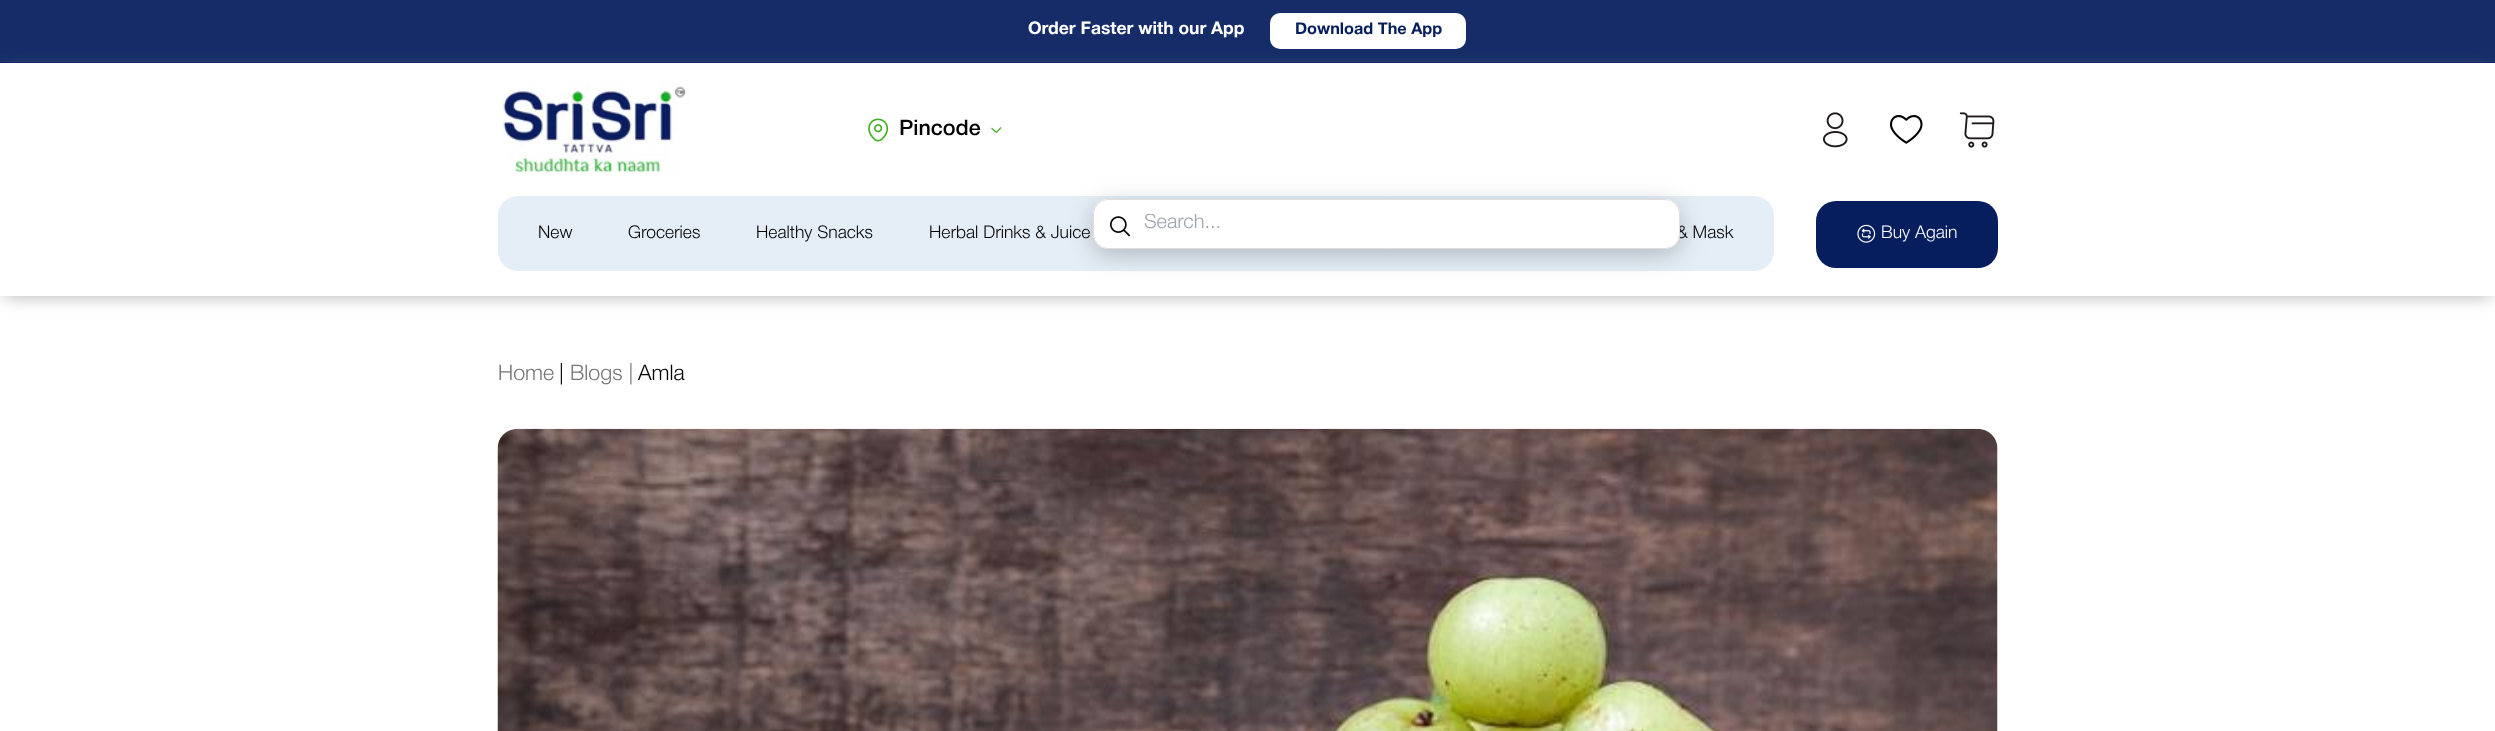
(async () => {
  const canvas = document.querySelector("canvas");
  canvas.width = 2495;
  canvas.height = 731;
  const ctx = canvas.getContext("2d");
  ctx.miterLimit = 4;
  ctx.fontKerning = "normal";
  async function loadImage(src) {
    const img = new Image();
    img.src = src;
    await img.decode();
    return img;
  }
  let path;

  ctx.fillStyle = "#ffffff";
  ctx.fillRect(0, 0, 2495, 731);
  for (const [x, y, w, h, color] of [
    [0, 62, 2495, 1, "#061e5e"],
    [0, 61, 2495, 1, "#1a306b"],
    [0, 0, 2495, 61, "#152c68"],
  ]) {
    ctx.fillStyle = color;
    ctx.fillRect(x, y, w, h);
  }
  ctx.fillStyle = "#ffffff";
  ctx.beginPath();
  ctx.roundRect(1270, 13, 196, 36, 10);
  ctx.fill();
  ctx.save();
  path = new Path2D("M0 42H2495V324H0ZM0 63H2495V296H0Z");
  ctx.clip(path, "evenodd");
  ctx.fillStyle = "rgba(135, 135, 135, 0.65)";
  ctx.filter = "blur(9px)";
  ctx.beginPath();
  ctx.rect(4, 70, 2487, 226);
  ctx.fill();
  ctx.filter = "none";
  ctx.restore();
  ctx.drawImage(await loadImage("img/1.png"), 501, 84, 188, 90);
  ctx.drawImage(await loadImage("img/2.png"), 868, 118, 21, 24);
  path = new Path2D("M991.5 128L996.5 132.5L1001 127.5");
  ctx.strokeStyle = "#3eae1f";
  ctx.lineWidth = 1.2;
  ctx.stroke(path);
  ctx.drawImage(await loadImage("img/3.png"), 1823, 112, 25, 36);
  ctx.drawImage(await loadImage("img/4.png"), 1890, 115, 33, 29);
  ctx.drawImage(await loadImage("img/5.png"), 1959, 112, 36, 36);
  ctx.fillStyle = "#e5eef7";
  ctx.beginPath();
  ctx.roundRect(498, 196, 1276, 75, 20);
  ctx.fill();
  ctx.fillStyle = "rgba(143, 149, 154, 0.6)";
  ctx.filter = "blur(12.5px)";
  ctx.beginPath();
  ctx.roundRect(1093, 205, 587, 50, 15);
  ctx.fill();
  ctx.filter = "none";
  ctx.fillStyle = "#061e5e";
  ctx.beginPath();
  ctx.roundRect(1816, 201, 182, 67, 20);
  ctx.fill();
  ctx.drawImage(await loadImage("img/7.png"), 1857, 224, 19, 19);
  ctx.drawImage(await loadImage("img/8.png"), 497, 428, 1501, 303);
  ctx.font = "bold 17.5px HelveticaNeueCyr";
  ctx.fillStyle = "#ffffff";
  ctx.fillText("Order Faster with our App", 1028, 34);
  ctx.font = "bold 16.25px HelveticaNeueCyr";
  ctx.fillStyle = "#061e5e";
  ctx.fillText("Download The App", 1295, 34);
  ctx.font = "500 21.5px HelveticaNeueCyr";
  ctx.fillStyle = "#000000";
  ctx.fillText("Pincode", 899, 135);
  ctx.font = "300 17.5px HelveticaNeueCyr";
  for (const [text, x, y] of [
    ["New", 538, 238],
    ["Groceries", 628, 238],
    ["Healthy Snacks", 756, 238],
    ["Herbal Drinks & Juice", 929, 238],
    ["& Mask", 1677, 238],
  ]) {
    ctx.fillText(text, x, y);
  }
  ctx.fillStyle = "#ffffff";
  ctx.beginPath();
  ctx.roundRect(1093, 199, 587, 50, 15);
  ctx.fill();
  ctx.drawImage(await loadImage("img/6.png"), 1110, 216, 20, 21);
  ctx.beginPath();
  ctx.roundRect(1093.5, 199.5, 586, 49, 14.5);
  ctx.strokeStyle = "#e2dddd";
  ctx.lineWidth = 1;
  ctx.stroke();
  ctx.save();
  ctx.beginPath();
  ctx.rect(1144, 214, 504, 19);
  ctx.clip();
  ctx.font = "300 20px HelveticaNeueCyr";
  ctx.fillStyle = "#9ca3af";
  ctx.fillText("Search...", 1144, 228);
  ctx.restore();
  ctx.fillText("Buy Again", 1881, 238);
  ctx.font = "300 21.5px HelveticaNeueCyr";
  ctx.fillStyle = "#767676";
  ctx.fillText("Home", 498, 380);
  ctx.fillStyle = "#000000";
  ctx.fillText("|", 559, 380);
  ctx.fillStyle = "#767676";
  ctx.fillText("Blogs |", 570, 380);
  ctx.fillStyle = "#000000";
  ctx.fillText("Amla", 638, 380);
})();
